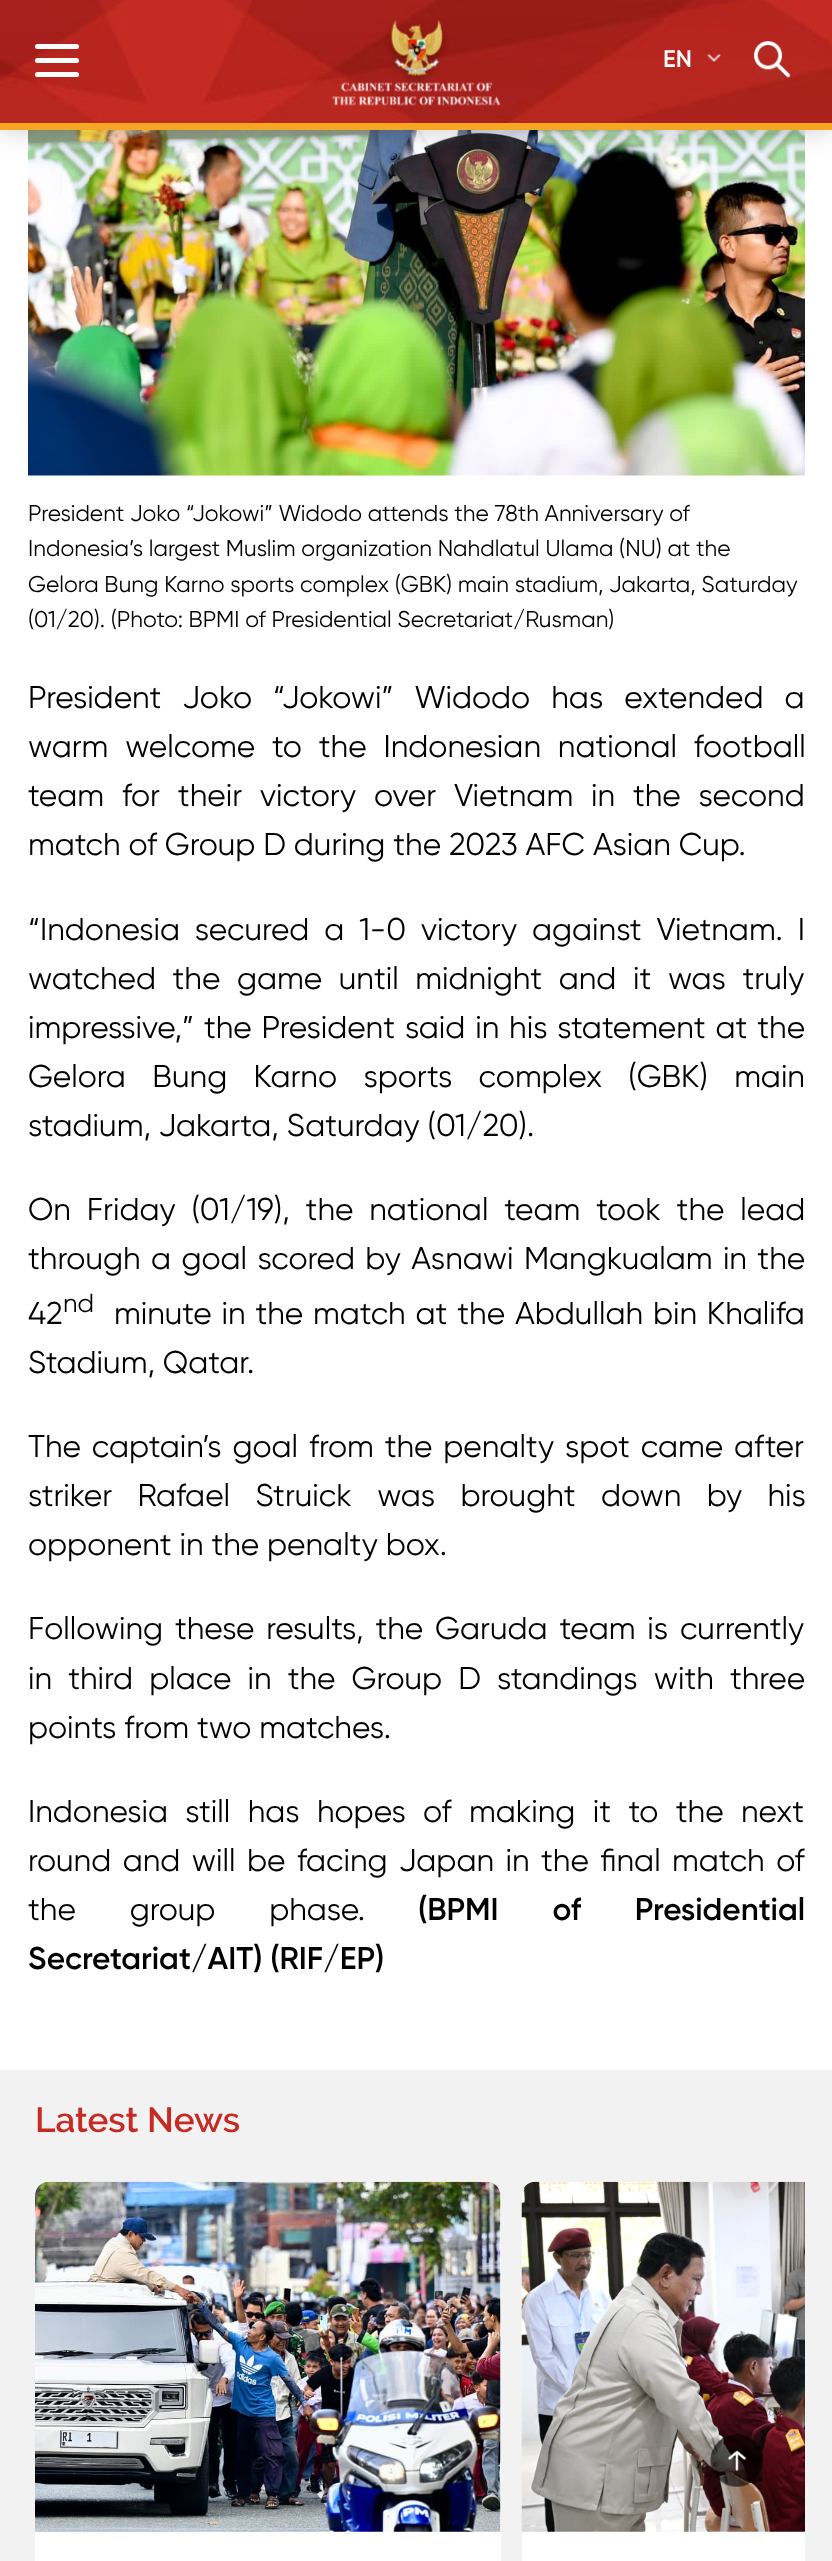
(async () => {
  const canvas = document.querySelector("canvas");
  canvas.width = 832;
  canvas.height = 2561;
  const ctx = canvas.getContext("2d");
  ctx.miterLimit = 4;
  ctx.fontKerning = "normal";
  async function loadImage(src) {
    const img = new Image();
    img.src = src;
    await img.decode();
    return img;
  }
  let path;

  ctx.fillStyle = "#ffffff";
  ctx.fillRect(0, 0, 832, 2561);
  ctx.drawImage(await loadImage("img/5.png"), 28, 130, 777, 346);
  ctx.fillStyle = "rgba(0, 0, 0, 0.2)";
  ctx.filter = "blur(13px)";
  ctx.beginPath();
  ctx.rect(0, 0, 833, 130);
  ctx.fill();
  ctx.filter = "none";
  ctx.drawImage(await loadImage("img/1.png"), 0, 0, 832, 123);
  ctx.fillStyle = "#f5a623";
  ctx.fillRect(0, 123, 832, 7);
  ctx.fillStyle = "#ffffff";
  ctx.beginPath();
  ctx.roundRect(35, 44, 44, 5, 2.5);
  ctx.fill();
  ctx.beginPath();
  ctx.roundRect(35, 58, 44, 5, 2.5);
  ctx.fill();
  ctx.beginPath();
  ctx.roundRect(35, 72, 44, 5, 2.5);
  ctx.fill();
  ctx.drawImage(await loadImage("img/2.png"), 331, 20, 170, 86);
  ctx.drawImage(await loadImage("img/3.png"), 706, 54, 15, 8);
  ctx.drawImage(await loadImage("img/4.png"), 753, 41, 38, 43);
  ctx.fillStyle = "#f2f2f2";
  ctx.fillRect(0, 2070, 832, 491);
  ctx.fillStyle = "#ffffff";
  ctx.beginPath();
  ctx.roundRect(35, 2182, 466, 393, 14);
  ctx.fill();
  ctx.drawImage(await loadImage("img/6.png"), 35, 2181, 466, 351);
  path = new Path2D("M536 2182H805V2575H536C528.5 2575 522 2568.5 522 2561V2196C522 2188.5 528.5 2182 536 2182Z");
  ctx.fill(path);
  ctx.drawImage(await loadImage("img/7.png"), 521, 2181, 284, 351);
  ctx.drawImage(await loadImage("img/8.png"), 710, 2434, 53, 53);
  ctx.font = "600 24px Gilroy";
  ctx.fillText("EN", 663, 67);
  ctx.font = "22.75px Gilroy";
  ctx.fillStyle = "#000000";
  for (const [text, x, y] of [
    ["President Joko “Jokowi” Widodo attends the 78th Anniversary of", 28, 521],
    ["Indonesia’s largest Muslim organization Nahdlatul Ulama (NU) at the", 28, 556],
    ["Gelora Bung Karno sports complex (GBK) main stadium, Jakarta, Saturday", 28, 592],
    ["(01/20). (Photo: BPMI of Presidential Secretariat/Rusman)", 28, 627],
  ]) {
    ctx.fillText(text, x, y);
  }
  ctx.wordSpacing = "13.25px";
  ctx.font = "31.5px Gilroy";
  ctx.fillText("President Joko “Jokowi” Widodo has extended a", 28, 708);
  ctx.wordSpacing = "9px";
  ctx.fillText("warm welcome to the Indonesian national football", 28, 757);
  ctx.wordSpacing = "10px";
  ctx.fillText("team for their victory over Vietnam in the second", 28, 806);
  ctx.wordSpacing = "0px";
  ctx.fillText("match of Group D during the 2023 AFC Asian Cup.", 28, 855);
  ctx.wordSpacing = "7px";
  ctx.fillText("“Indonesia secured a 1-0 victory against Vietnam. I", 28, 940);
  ctx.wordSpacing = "8.75px";
  ctx.fillText("watched the game until midnight and it was truly", 28, 989);
  ctx.wordSpacing = "2px";
  ctx.fillText("impressive,” the President said in his statement at the", 28, 1038);
  ctx.wordSpacing = "18.5px";
  ctx.fillText("Gelora Bung Karno sports complex (GBK) main", 28, 1087);
  ctx.wordSpacing = "0px";
  ctx.fillText("stadium, Jakarta, Saturday (01/20).", 28, 1136);
  ctx.wordSpacing = "8px";
  ctx.fillText("On Friday (01/19), the national team took the lead", 28, 1220);
  ctx.wordSpacing = "2.5px";
  ctx.fillText("through a goal scored by Asnawi Mangkualam in the", 28, 1269);
  ctx.wordSpacing = "0px";
  ctx.fillText("42", 28, 1324);
  ctx.font = "26px Gilroy";
  ctx.fillText("nd", 63, 1312);
  ctx.wordSpacing = "2px";
  ctx.font = "31.5px Gilroy";
  ctx.fillText("minute in the match at the Abdullah bin Khalifa", 114, 1324);
  ctx.wordSpacing = "0px";
  ctx.fillText("Stadium, Qatar.", 28, 1373);
  ctx.wordSpacing = "3px";
  ctx.fillText("The captain’s goal from the penalty spot came after", 28, 1457);
  ctx.wordSpacing = "17.5px";
  ctx.fillText("striker Rafael Struick was brought down by his", 28, 1506);
  ctx.wordSpacing = "0px";
  ctx.fillText("opponent in the penalty box.", 28, 1555);
  ctx.wordSpacing = "4px";
  ctx.fillText("Following these results, the Garuda team is currently", 28, 1639);
  ctx.wordSpacing = "8.25px";
  ctx.fillText("in third place in the Group D standings with three", 28, 1689);
  ctx.wordSpacing = "0px";
  ctx.fillText("points from two matches.", 28, 1738);
  ctx.wordSpacing = "9.5px";
  ctx.fillText("Indonesia still has hopes of making it to the next", 28, 1822);
  ctx.wordSpacing = "3.6px";
  ctx.fillText("round and will be facing Japan in the final match of", 28, 1871);
  ctx.wordSpacing = "46px";
  ctx.fillText("the group phase.", 28, 1920);
  ctx.font = "600 31.5px Gilroy";
  ctx.fillText("(BPMI of Presidential", 418, 1920);
  ctx.wordSpacing = "0px";
  ctx.fillText("Secretariat/AIT) (RIF/EP)", 28, 1969);
  ctx.font = "600 35px Raleway";
  ctx.fillStyle = "#c52b23";
  ctx.fillText("Latest News", 35, 2132);
})();
